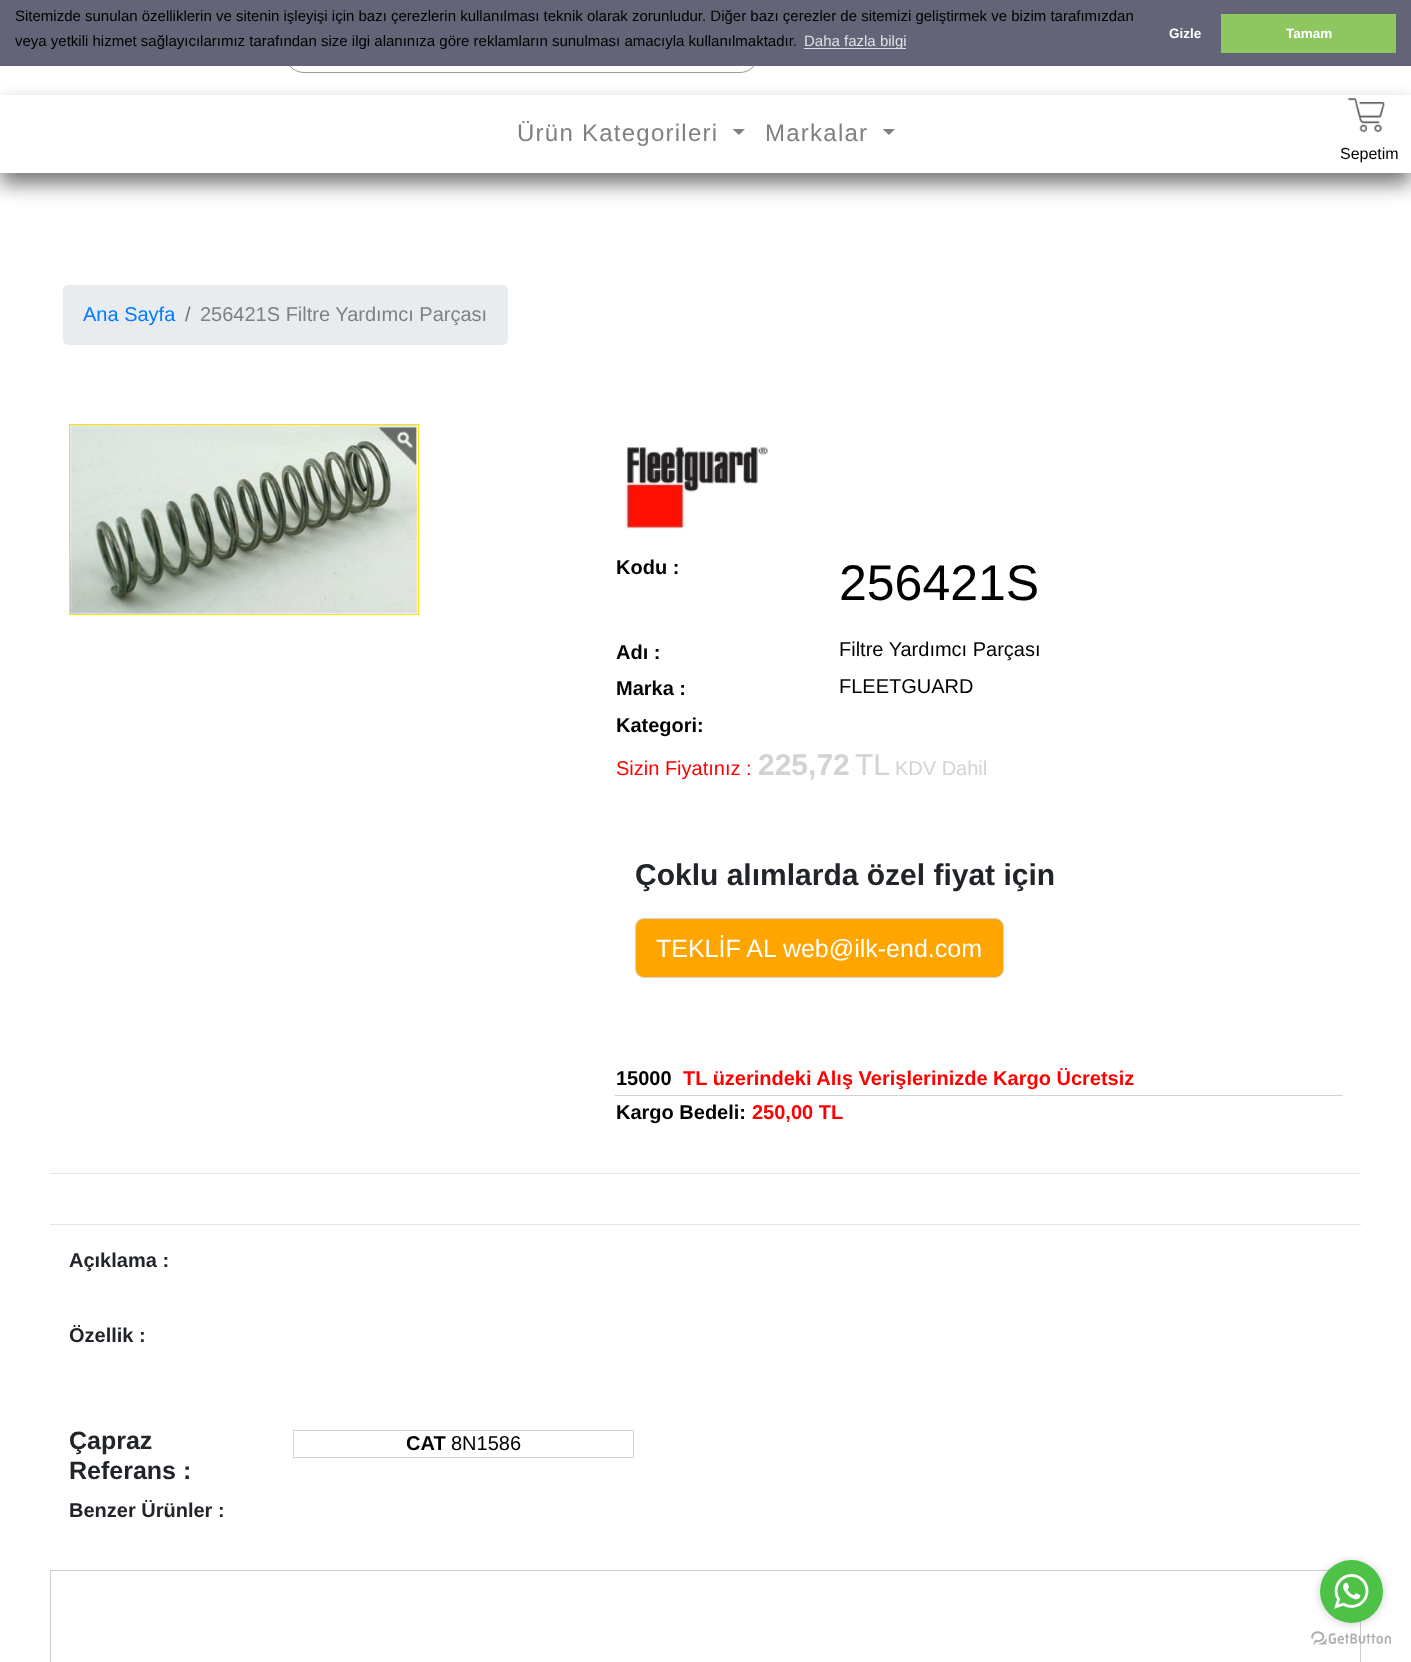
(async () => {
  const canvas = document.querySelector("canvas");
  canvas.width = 1411;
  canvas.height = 1662;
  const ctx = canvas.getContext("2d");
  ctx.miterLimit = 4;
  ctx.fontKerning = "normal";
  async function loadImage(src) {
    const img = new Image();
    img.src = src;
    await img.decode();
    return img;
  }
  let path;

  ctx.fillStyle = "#ffffff";
  ctx.fillRect(0, 0, 1411, 1662);
  ctx.beginPath();
  ctx.roundRect(285.5, 23.5, 473, 49, 18.5);
  ctx.strokeStyle = "#999999";
  ctx.stroke();
  for (const [x, y, w, h, color] of [
    [0, 0, 1411, 66, "#646478"],
    [804, 48, 102, 1, "#e0e0e4"],
    [1221, 14, 175, 39, "#8ec760"],
  ]) {
    ctx.fillStyle = color;
    ctx.fillRect(x, y, w, h);
  }
  ctx.save();
  path = new Path2D("M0 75H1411V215H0ZM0 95H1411V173H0Z");
  ctx.clip(path, "evenodd");
  ctx.fillStyle = "#777777";
  ctx.filter = "blur(10px)";
  ctx.beginPath();
  ctx.rect(0, 106, 1411, 78);
  ctx.fill();
  ctx.filter = "none";
  ctx.restore();
  ctx.fillStyle = "#808080";
  path = new Path2D("M732.5 129H745L739 135Z");
  ctx.fill(path);
  path = new Path2D("M882.5 129H895L889 135Z");
  ctx.fill(path);
  ctx.drawImage(await loadImage("img/1.png"), 1348, 97, 37, 36);
  ctx.fillStyle = "#e9ecef";
  ctx.beginPath();
  ctx.roundRect(63, 285, 445, 60, 5);
  ctx.fill();
  ctx.strokeStyle = "#fae503";
  ctx.strokeRect(69.5, 424.5, 349, 190);
  ctx.drawImage(await loadImage("img/2.png"), 70, 425, 348, 189);
  ctx.drawImage(await loadImage("img/3.png"), 378, 427, 39, 39);
  ctx.drawImage(await loadImage("img/4.png"), 625, 447, 143, 82);
  ctx.fillStyle = "#ffa500";
  ctx.beginPath();
  ctx.roundRect(635.5, 918.5, 368, 59, 8.5);
  ctx.fill();
  ctx.strokeStyle = "#d3d3d3";
  ctx.stroke();
  for (const [x, y, w, h, color] of [
    [615, 1095, 728, 1, "#d3d3d3"],
    [50, 1173, 1311, 1, "#e6e6e6"],
    [50, 1224, 1311, 1, "#e6e6e6"],
  ]) {
    ctx.fillStyle = color;
    ctx.fillRect(x, y, w, h);
  }
  ctx.strokeRect(293.5, 1430.5, 340, 27);
  for (const [x, y, w, h, color] of [
    [50, 1570, 1279, 1, "#cccccc"],
    [1360, 1621, 1, 41, "#cccccc"],
    [50, 1570, 1, 92, "#cccccc"],
  ]) {
    ctx.fillStyle = color;
    ctx.fillRect(x, y, w, h);
  }
  ctx.drawImage(await loadImage("img/6.png"), 1311, 1631, 80, 14);
  ctx.fillStyle = "rgba(136, 136, 136, 0.4)";
  ctx.filter = "blur(4.5px)";
  ctx.beginPath();
  ctx.roundRect(1320, 1561, 63, 63, 31.5);
  ctx.fill();
  ctx.filter = "none";
  ctx.fillStyle = "#4dc247";
  ctx.beginPath();
  ctx.arc(1351.5, 1591.5, 31.5, 0, Math.PI * 2);
  ctx.fill();
  ctx.drawImage(await loadImage("img/5.png"), 1334, 1574, 35, 35);
  ctx.font = "15px Liberation Sans";
  ctx.fillStyle = "#000000";
  ctx.fillText("Sitemizde sunulan özelliklerin ve sitenin işleyişi için bazı çerezlerin kullanılması teknik olarak zorunludur. Diğer bazı çerezler de sitemizi geliştirmek ve bizim tarafımızdan", 15, 21);
  ctx.fillText("veya yetkili hizmet sağlayıcılarımız tarafından size ilgi alanınıza göre reklamların sunulması amacıyla kullanılmaktadır.", 15, 46);
  ctx.fillStyle = "#e0e0e4";
  ctx.fillText("Daha fazla bilgi", 804, 46);
  ctx.font = "bold 13.5px Liberation Sans";
  ctx.fillStyle = "#ffffff";
  ctx.fillText("Gizle", 1169, 38);
  ctx.fillText("Tamam", 1286, 38);
  ctx.letterSpacing = "1.25px";
  ctx.font = "24px Liberation Sans";
  ctx.fillStyle = "#808080";
  ctx.fillText("Ürün Kategorileri", 517, 141);
  ctx.fillText("Markalar", 765, 141);
  ctx.letterSpacing = "0px";
  ctx.font = "16px Liberation Sans";
  ctx.fillStyle = "#000000";
  ctx.fillText("Sepetim", 1340, 159);
  ctx.font = "20px Liberation Sans";
  ctx.fillStyle = "#007bff";
  ctx.fillText("Ana Sayfa", 83, 321);
  ctx.fillStyle = "#6c757d";
  ctx.fillText("/", 185, 321);
  ctx.fillStyle = "#808080";
  ctx.fillText("256421S Filtre Yardımcı Parçası", 200, 321);
  ctx.font = "bold 20px Liberation Sans";
  ctx.fillStyle = "#000000";
  ctx.fillText("Kodu :", 616, 574);
  ctx.font = "50px Liberation Sans";
  ctx.fillText("256421S", 839, 600);
  ctx.font = "bold 20px Liberation Sans";
  ctx.fillText("Adı :", 616, 659);
  ctx.font = "20px Liberation Sans";
  ctx.fillText("Filtre Yardımcı Parçası", 839, 656);
  ctx.font = "bold 20px Liberation Sans";
  ctx.fillText("Marka :", 616, 695);
  ctx.font = "20px Liberation Sans";
  ctx.fillText("FLEETGUARD", 839, 693);
  ctx.font = "bold 20px Liberation Sans";
  ctx.fillText("Kategori:", 616, 732);
  ctx.font = "20px Liberation Sans";
  ctx.fillStyle = "#ff0000";
  ctx.fillText("Sizin Fiyatınız :", 616, 775);
  ctx.font = "bold 30px Liberation Sans";
  ctx.fillStyle = "#d3d3d3";
  ctx.fillText("225,72", 758, 775);
  ctx.font = "30px Liberation Sans";
  ctx.fillText("TL", 855, 775);
  ctx.font = "20px Liberation Sans";
  ctx.fillText("KDV Dahil", 895, 775);
  ctx.font = "bold 30px Liberation Sans";
  ctx.fillStyle = "#212529";
  ctx.fillText("Çoklu alımlarda özel fiyat için", 635, 885);
  ctx.font = "25px Liberation Sans";
  ctx.fillStyle = "#ffffff";
  ctx.fillText("TEKLİF AL web@ilk-end.com", 656, 957);
  ctx.font = "bold 20px Liberation Sans";
  ctx.fillStyle = "#000000";
  ctx.fillText("15000", 616, 1085);
  ctx.fillStyle = "#ff0000";
  ctx.fillText("TL üzerindeki Alış Verişlerinizde Kargo Ücretsiz", 683, 1085);
  ctx.fillStyle = "#000000";
  ctx.fillText("Kargo Bedeli:", 616, 1119);
  ctx.fillStyle = "#ff0000";
  ctx.fillText("250,00 TL", 752, 1119);
  ctx.fillStyle = "#212529";
  ctx.fillText("Açıklama :", 69, 1267);
  ctx.fillText("Özellik :", 69, 1342);
  ctx.font = "bold 25px Liberation Sans";
  ctx.fillText("Çapraz", 69, 1449);
  ctx.fillText("Referans :", 69, 1479);
  ctx.font = "bold 20px Liberation Sans";
  ctx.fillStyle = "#000000";
  ctx.fillText("CAT", 406, 1450);
  ctx.font = "20px Liberation Sans";
  ctx.fillText("8N1586", 451, 1450);
  ctx.font = "bold 20px Liberation Sans";
  ctx.fillStyle = "#212529";
  ctx.fillText("Benzer Ürünler :", 69, 1517);
})();
